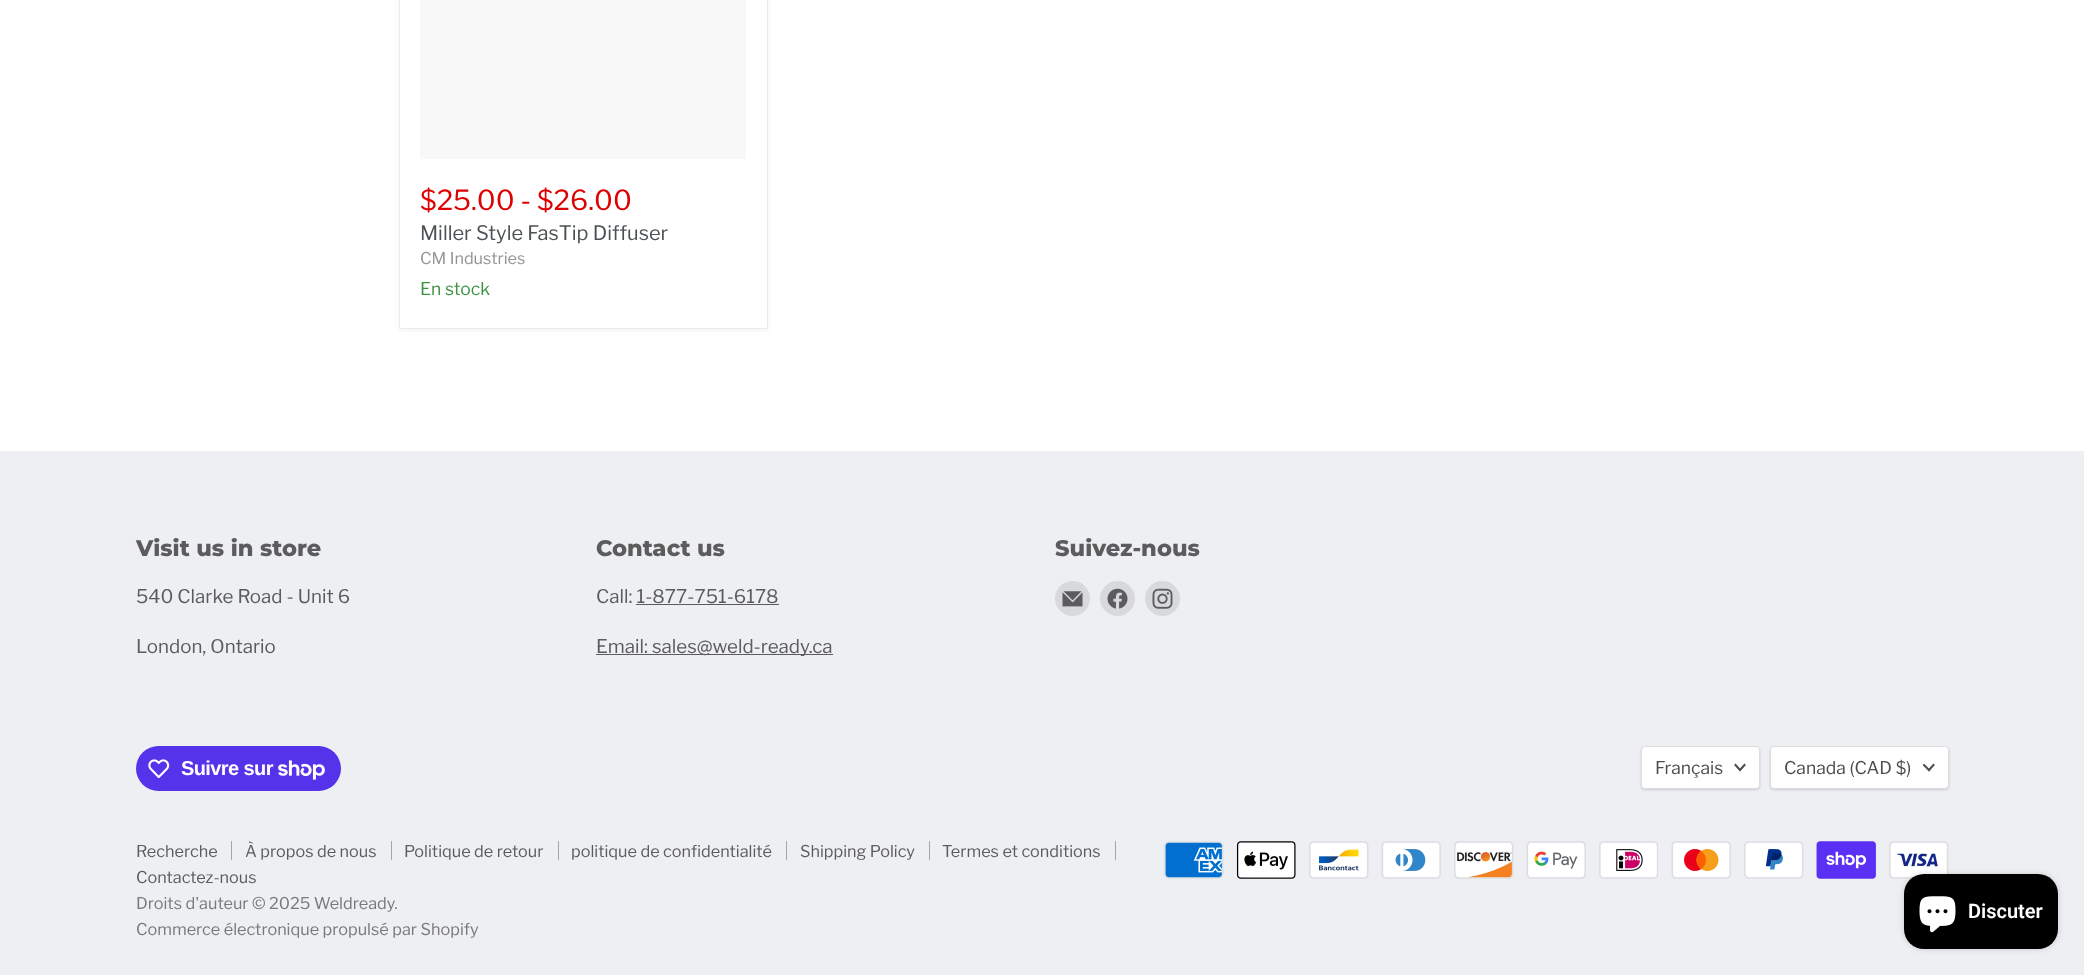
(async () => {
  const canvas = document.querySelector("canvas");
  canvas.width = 2084;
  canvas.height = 975;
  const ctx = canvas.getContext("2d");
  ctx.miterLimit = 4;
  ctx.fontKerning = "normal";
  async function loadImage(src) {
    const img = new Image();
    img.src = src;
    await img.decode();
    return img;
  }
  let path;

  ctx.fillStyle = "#ffffff";
  ctx.fillRect(0, 0, 2084, 975);
  ctx.fillStyle = "rgba(128, 128, 128, 0.11)";
  ctx.filter = "blur(2.5px)";
  ctx.beginPath();
  ctx.rect(399, -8, 369, 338);
  ctx.fill();
  ctx.filter = "none";
  ctx.fillStyle = "#ffffff";
  ctx.beginPath();
  ctx.rect(399.5, -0.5, 368, 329);
  ctx.fill();
  ctx.strokeStyle = "#ebebeb";
  ctx.stroke();
  for (const [x, y, w, h, color] of [
    [420, 0, 326, 159, "#f8f8f8"],
    [0, 451, 2084, 524, "#edeff3"],
    [636, 604, 143, 1, "#5c5c5c"],
    [596, 654, 237, 1, "#5c5c5c"],
  ]) {
    ctx.fillStyle = color;
    ctx.fillRect(x, y, w, h);
  }
  ctx.fillStyle = "#d7d9dc";
  ctx.beginPath();
  ctx.arc(1072.5, 598.5, 17.5, 0, Math.PI * 2);
  ctx.fill();
  ctx.drawImage(await loadImage("img/1.png"), 1062, 591, 21, 16);
  ctx.beginPath();
  ctx.arc(1117.5, 598.5, 17.5, 0, Math.PI * 2);
  ctx.fill();
  ctx.drawImage(await loadImage("img/2.png"), 1107, 588, 21, 21);
  ctx.beginPath();
  ctx.arc(1162.5, 598.5, 17.5, 0, Math.PI * 2);
  ctx.fill();
  ctx.drawImage(await loadImage("img/3.png"), 1152, 588, 21, 21);
  ctx.fillStyle = "#5433eb";
  ctx.beginPath();
  ctx.roundRect(136, 746, 205, 45, 22.5);
  ctx.fill();
  ctx.drawImage(await loadImage("img/4.png"), 148, 759, 22, 20);
  ctx.drawImage(await loadImage("img/5.png"), 278, 760, 47, 20);
  ctx.fillStyle = "rgba(0, 0, 0, 0.15)";
  ctx.filter = "blur(1px)";
  ctx.beginPath();
  ctx.roundRect(1641, 748, 119, 42, 4);
  ctx.fill();
  ctx.filter = "none";
  ctx.fillStyle = "#ffffff";
  ctx.beginPath();
  ctx.roundRect(1641.5, 746.5, 118, 42, 3.5);
  ctx.fill();
  ctx.strokeStyle = "#dddddd";
  ctx.stroke();
  path = new Path2D("M1740 770L1744.5 765M1740 770L1735.5 765");
  ctx.strokeStyle = "#4d4d4d";
  ctx.lineWidth = 2;
  ctx.lineCap = "square";
  ctx.stroke(path);
  ctx.fillStyle = "rgba(0, 0, 0, 0.15)";
  ctx.filter = "blur(1px)";
  ctx.beginPath();
  ctx.roundRect(1770, 748, 179, 42, 4);
  ctx.fill();
  ctx.filter = "none";
  ctx.fillStyle = "#ffffff";
  ctx.beginPath();
  ctx.roundRect(1770.5, 746.5, 178, 42, 3.5);
  ctx.fill();
  ctx.strokeStyle = "#dddddd";
  ctx.lineWidth = 1;
  ctx.stroke();
  path = new Path2D("M1929 770L1933.5 765");
  ctx.strokeStyle = "#4d4d4d";
  ctx.lineWidth = 2;
  ctx.stroke(path);
  ctx.save();
  ctx.beginPath();
  ctx.rect(1923, 764, 12, 9);
  ctx.clip();
  path = new Path2D("M1929 770L1924 765");
  ctx.stroke(path);
  ctx.restore();
  for (const [x, y, w, h, color] of [
    [231, 841, 1, 19, "#a5a6a8"],
    [391, 841, 1, 19, "#a5a6a8"],
    [558, 841, 1, 19, "#a5a6a8"],
    [786, 841, 1, 19, "#a5a6a8"],
    [929, 841, 1, 19, "#a5a6a8"],
    [1115, 841, 1, 19, "#a5a6a8"],
  ]) {
    ctx.fillStyle = color;
    ctx.fillRect(x, y, w, h);
  }
  ctx.drawImage(await loadImage("img/6.png"), 1164, 841, 60, 38);
  ctx.drawImage(await loadImage("img/7.png"), 1236, 841, 60, 38);
  ctx.drawImage(await loadImage("img/8.png"), 1309, 841, 60, 38);
  ctx.drawImage(await loadImage("img/9.png"), 1381, 841, 60, 38);
  ctx.drawImage(await loadImage("img/10.png"), 1454, 841, 60, 38);
  ctx.drawImage(await loadImage("img/11.png"), 1526, 841, 60, 38);
  ctx.drawImage(await loadImage("img/12.png"), 1599, 841, 59, 38);
  ctx.drawImage(await loadImage("img/13.png"), 1671, 841, 60, 38);
  ctx.drawImage(await loadImage("img/14.png"), 1744, 841, 60, 38);
  ctx.drawImage(await loadImage("img/15.png"), 1816, 841, 60, 38);
  ctx.drawImage(await loadImage("img/16.png"), 1889, 841, 60, 38);
  ctx.fillStyle = "rgba(0, 0, 0, 0.15)";
  ctx.filter = "blur(3px)";
  ctx.beginPath();
  ctx.roundRect(1904, 874, 154, 75, 20);
  ctx.fill();
  ctx.filter = "none";
  ctx.fillStyle = "#000000";
  ctx.beginPath();
  ctx.roundRect(1904, 874, 154, 75, 20);
  ctx.fill();
  ctx.drawImage(await loadImage("img/17.png"), 1919, 896, 37, 37);
  ctx.font = "27.5px Libre Franklin";
  ctx.fillStyle = "#de0101";
  ctx.fillText("$25.00 - $26.00", 420, 210);
  ctx.font = "20px Libre Franklin";
  ctx.fillStyle = "#4c5154";
  ctx.fillText("Miller Style FasTip Diffuser", 420, 240);
  ctx.font = "16.25px Libre Franklin";
  ctx.fillStyle = "#949494";
  ctx.fillText("CM Industries", 420, 264);
  ctx.font = "17.5px Libre Franklin";
  ctx.fillStyle = "#3c9342";
  ctx.fillText("En stock", 420, 295);
  ctx.font = "800 22.5px Montserrat";
  ctx.fillStyle = "#5c5c5c";
  ctx.fillText("Visit us in store", 136, 556);
  ctx.font = "18.75px Libre Franklin";
  ctx.fillText("540 Clarke Road - Unit 6", 136, 603);
  ctx.fillText("London, Ontario", 136, 653);
  ctx.font = "800 22.5px Montserrat";
  ctx.fillText("Contact us", 596, 556);
  ctx.font = "18.75px Libre Franklin";
  ctx.fillText("Call: 1-877-751-6178", 596, 603);
  ctx.fillText("Email: sales@weld-ready.ca", 596, 653);
  ctx.font = "800 22.5px Montserrat";
  ctx.fillText("Suivez-nous", 1055, 556);
  ctx.letterSpacing = "-0.6px";
  ctx.font = "bold 20px Liberation Sans";
  ctx.fillStyle = "#ffffff";
  ctx.fillText("Suivre sur", 181, 775);
  ctx.letterSpacing = "0px";
  ctx.font = "17.5px Libre Franklin";
  ctx.fillStyle = "#4d4d4d";
  ctx.fillText("Français", 1655, 774);
  ctx.fillText("Canada (CAD $)", 1784, 774);
  ctx.font = "16.25px Libre Franklin";
  ctx.fillStyle = "#5c5c5c";
  for (const [text, x, y] of [
    ["Recherche", 136, 857],
    ["À propos de nous", 245, 857],
    ["Politique de retour", 404, 857],
    ["politique de confidentialité", 571, 857],
    ["Shipping Policy", 800, 857],
    ["Termes et conditions", 942, 857],
    ["Contactez-nous", 136, 883],
  ]) {
    ctx.fillText(text, x, y);
  }
  ctx.fillStyle = "#79797a";
  ctx.fillText("Droits d'auteur © 2025 Weldready.", 136, 909);
  ctx.fillText("Commerce électronique propulsé par Shopify", 136, 935);
  ctx.font = "600 20px Roboto";
  ctx.fillStyle = "#ffffff";
  ctx.fillText("Discuter", 1968, 918);
})();
